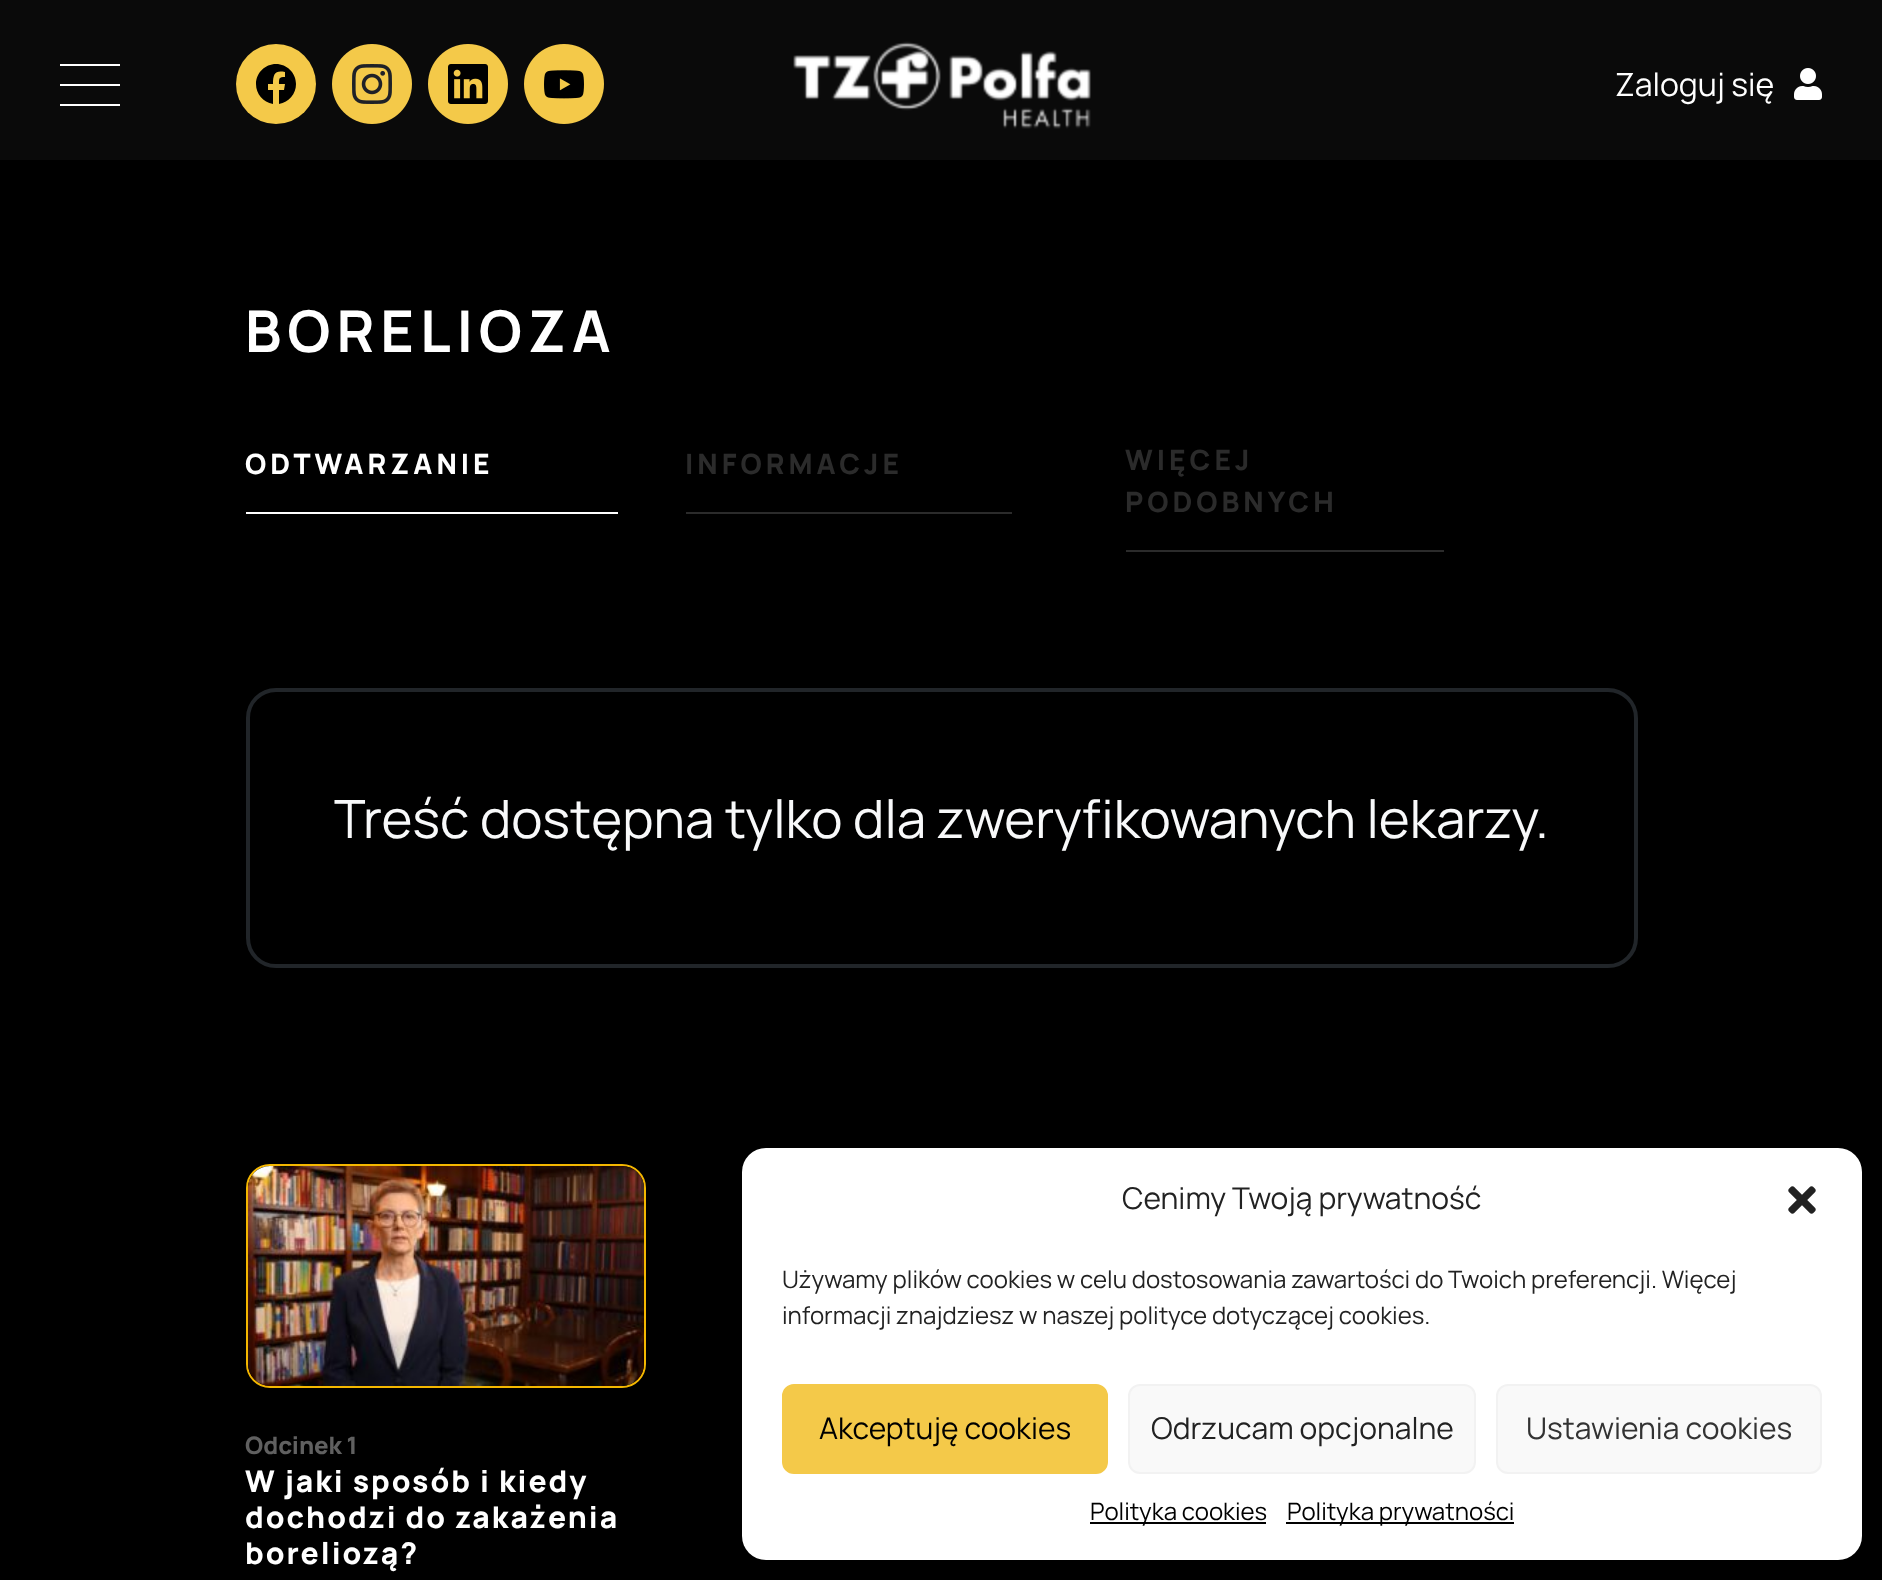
(async () => {
  const canvas = document.querySelector("canvas");
  canvas.width = 1882;
  canvas.height = 1580;
  const ctx = canvas.getContext("2d");
  ctx.miterLimit = 4;
  ctx.fontKerning = "normal";
  async function loadImage(src) {
    const img = new Image();
    img.src = src;
    await img.decode();
    return img;
  }
  let path;

  ctx.fillStyle = "#000000";
  ctx.fillRect(0, 0, 1882, 1580);
  for (const [x, y, w, h, color] of [
    [0, 0, 1882, 160, "#0a0a0a"],
    [60, 84, 60, 2, "#ffffff"],
    [60, 64, 60, 2, "#ffffff"],
    [60, 104, 60, 2, "#ffffff"],
  ]) {
    ctx.fillStyle = color;
    ctx.fillRect(x, y, w, h);
  }
  ctx.fillStyle = "#f4c949";
  ctx.beginPath();
  ctx.arc(276, 84, 40, 0, Math.PI * 2);
  ctx.fill();
  ctx.fillStyle = "#000000";
  path = new Path2D("M296 84C296 73 287 64 276 64C265 64 256 73 256 84C256 94 263 102 273 104V90H268V84H273C273 74 275 70 285 72V77C279 77 279 78 279 84H285L284 90H279V104C289 102 296 94 296 84Z");
  ctx.fill(path);
  ctx.drawImage(await loadImage("img/1.png"), 332, 44, 80, 80);
  ctx.drawImage(await loadImage("img/2.png"), 428, 44, 80, 80);
  ctx.drawImage(await loadImage("img/3.png"), 524, 44, 80, 80);
  ctx.drawImage(await loadImage("img/4.png"), 793, 41, 298, 88);
  ctx.drawImage(await loadImage("img/5.png"), 1794, 68, 28, 32);
  for (const [x, y, w, h, color] of [
    [246, 512, 372, 2, "#ffffff"],
    [686, 512, 326, 2, "#2b2b2b"],
    [1126, 550, 318, 2, "#2b2b2b"],
  ]) {
    ctx.fillStyle = color;
    ctx.fillRect(x, y, w, h);
  }
  ctx.beginPath();
  ctx.roundRect(248, 690, 1388, 276, 28);
  ctx.strokeStyle = "#212529";
  ctx.lineWidth = 4;
  ctx.stroke();
  ctx.beginPath();
  ctx.roundRect(247, 1165, 398, 222, 23);
  ctx.strokeStyle = "#f4b700";
  ctx.lineWidth = 2;
  ctx.stroke();
  ctx.drawImage(await loadImage("img/6.png"), 248, 1166, 396, 220);
  ctx.fillStyle = "#ffffff";
  ctx.beginPath();
  ctx.roundRect(742, 1148, 1120, 412, 24);
  ctx.fill();
  ctx.drawImage(await loadImage("img/7.png"), 1788, 1186, 28, 28);
  ctx.fillStyle = "#f4c949";
  ctx.beginPath();
  ctx.roundRect(783, 1385, 324, 88, 11);
  ctx.fill();
  ctx.strokeStyle = "#f4c949";
  ctx.stroke();
  ctx.fillStyle = "#f9f9f9";
  ctx.beginPath();
  ctx.roundRect(1129, 1385, 346, 88, 11);
  ctx.fill();
  ctx.strokeStyle = "#f2f2f2";
  ctx.stroke();
  ctx.beginPath();
  ctx.roundRect(1497, 1385, 324, 88, 11);
  ctx.fill();
  ctx.stroke();
  ctx.fillStyle = "#000000";
  ctx.fillRect(1090, 1522, 176, 2);
  ctx.fillRect(1286, 1522, 228, 2);
  ctx.font = "32px Manrope";
  ctx.fillStyle = "#ffffff";
  ctx.fillText("Zaloguj się", 1615, 96);
  ctx.letterSpacing = "6px";
  ctx.font = "bold 57.5px Manrope";
  ctx.fillText("BORELIOZA", 245, 352);
  ctx.letterSpacing = "4px";
  ctx.font = "800 28px Manrope";
  ctx.fillText("ODTWARZANIE", 245, 474);
  ctx.fillStyle = "#2b2b2b";
  for (const [text, x, y] of [
    ["INFORMACJE", 685, 474],
    ["WIĘCEJ", 1125, 470],
    ["PODOBNYCH", 1125, 512],
  ]) {
    ctx.fillText(text, x, y);
  }
  ctx.letterSpacing = "0px";
  ctx.font = "52.9px Manrope";
  ctx.fillStyle = "#f8f9fa";
  ctx.fillText("Treść dostępna tylko dla zweryfikowanych lekarzy.", 334, 838);
  ctx.font = "800 24px Manrope";
  ctx.fillStyle = "#606060";
  ctx.fillText("Odcinek 1", 245, 1454);
  ctx.letterSpacing = "2px";
  ctx.font = "800 30px Manrope";
  ctx.fillStyle = "#ffffff";
  for (const [text, x, y] of [
    ["W jaki sposób i kiedy", 245, 1492],
    ["dochodzi do zakażenia", 245, 1528],
    ["boreliozą?", 245, 1564],
  ]) {
    ctx.fillText(text, x, y);
  }
  ctx.letterSpacing = "0px";
  ctx.font = "30px Manrope";
  ctx.fillStyle = "#222222";
  ctx.fillText("Cenimy Twoją prywatność", 1122, 1209);
  ctx.font = "24px Manrope";
  ctx.fillText("Używamy plików cookies w celu dostosowania zawartości do Twoich preferencji. Więcej", 782, 1288);
  ctx.fillText("informacji znajdziesz w naszej polityce dotyczącej cookies.", 782, 1324);
  ctx.font = "30px Manrope";
  ctx.fillStyle = "#000000";
  ctx.fillText("Akceptuję cookies", 819, 1439);
  ctx.fillStyle = "#222222";
  ctx.fillText("Odrzucam opcjonalne", 1151, 1439);
  ctx.fillStyle = "#333333";
  ctx.fillText("Ustawienia cookies", 1526, 1439);
  ctx.font = "24px Manrope";
  ctx.fillStyle = "#000000";
  ctx.fillText("Polityka cookies", 1090, 1520);
  ctx.fillText("Polityka prywatności", 1287, 1520);
})();
